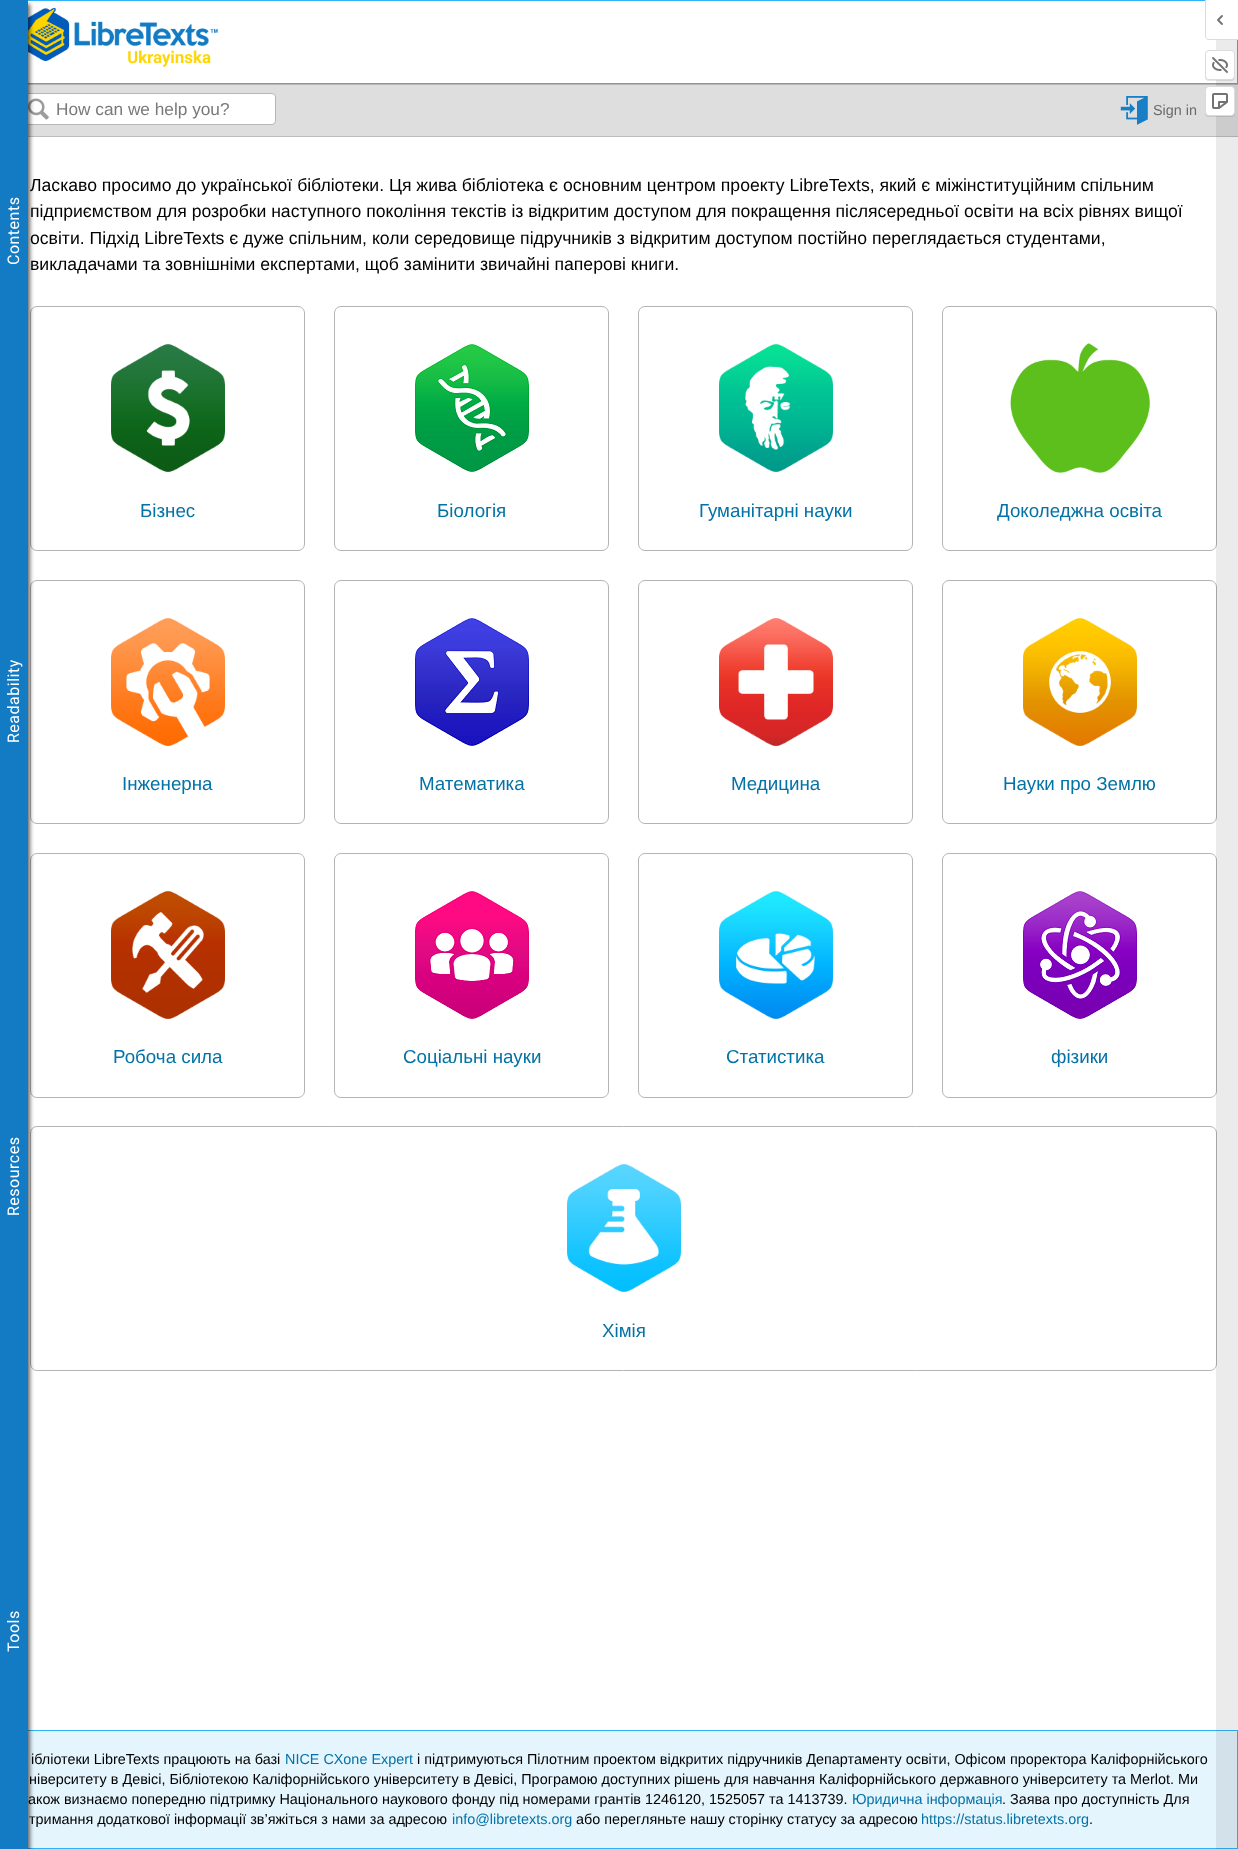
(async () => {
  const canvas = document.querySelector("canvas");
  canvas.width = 1238;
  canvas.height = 1849;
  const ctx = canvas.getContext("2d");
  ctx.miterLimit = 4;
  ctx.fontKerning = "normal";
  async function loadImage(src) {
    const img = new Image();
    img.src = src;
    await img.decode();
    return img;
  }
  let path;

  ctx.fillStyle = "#ffffff";
  ctx.fillRect(0, 0, 1238, 1849);
  ctx.strokeStyle = "#30b3f6";
  ctx.strokeRect(0.5, 0.5, 1237, 83);
  ctx.drawImage(await loadImage("img/1.png"), 28, 7, 191, 60);
  for (const [x, y, w, h, color] of [
    [28, 85, 1210, 51, "#dedede"],
    [28, 84, 1210, 1, "#b6b6b6"],
    [28, 136, 1210, 1, "#bdbdbd"],
  ]) {
    ctx.fillStyle = color;
    ctx.fillRect(x, y, w, h);
  }
  ctx.fillStyle = "#ffffff";
  ctx.beginPath();
  ctx.roundRect(21.5, 93.5, 254, 31, 3.5);
  ctx.fill();
  ctx.strokeStyle = "#b6b6b6";
  ctx.stroke();
  ctx.drawImage(await loadImage("img/2.png"), 28, 98, 21, 22);
  ctx.beginPath();
  ctx.roundRect(30.5, 306.5, 274, 244, 6.5);
  ctx.strokeStyle = "#b4b4b4";
  ctx.stroke();
  ctx.beginPath();
  ctx.roundRect(30.5, 580.5, 274, 243, 6.5);
  ctx.stroke();
  ctx.beginPath();
  ctx.roundRect(30.5, 853.5, 274, 244, 6.5);
  ctx.stroke();
  ctx.beginPath();
  ctx.roundRect(30.5, 1126.5, 1186, 244, 6.5);
  ctx.stroke();
  ctx.fillStyle = "#e5f5fe";
  ctx.fillRect(28, 1731, 1209, 117);
  ctx.strokeStyle = "#30b3f6";
  ctx.strokeRect(0.5, 1730.5, 1237, 118);
  ctx.fillStyle = "rgba(0, 0, 0, 0.6)";
  ctx.filter = "blur(2px)";
  ctx.beginPath();
  ctx.rect(2, 4, 28, 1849);
  ctx.fill();
  ctx.filter = "none";
  ctx.fillStyle = "#127bc4";
  ctx.fillRect(0, 0, 28, 1849);
  ctx.drawImage(await loadImage("img/3.png"), 1120, 96, 28, 29);
  ctx.drawImage(await loadImage("img/4.png"), 111, 344, 114, 128);
  ctx.beginPath();
  ctx.roundRect(334.5, 306.5, 274, 244, 6.5);
  ctx.strokeStyle = "#b4b4b4";
  ctx.stroke();
  ctx.drawImage(await loadImage("img/5.png"), 415, 344, 114, 128);
  ctx.beginPath();
  ctx.roundRect(638.5, 306.5, 274, 244, 6.5);
  ctx.stroke();
  ctx.drawImage(await loadImage("img/6.png"), 719, 344, 114, 128);
  ctx.beginPath();
  ctx.roundRect(942.5, 306.5, 274, 244, 6.5);
  ctx.stroke();
  ctx.drawImage(await loadImage("img/7.png"), 1010, 343, 140, 130);
  ctx.drawImage(await loadImage("img/8.png"), 111, 618, 114, 128);
  ctx.beginPath();
  ctx.roundRect(334.5, 580.5, 274, 243, 6.5);
  ctx.stroke();
  ctx.drawImage(await loadImage("img/9.png"), 415, 618, 114, 128);
  ctx.beginPath();
  ctx.roundRect(638.5, 580.5, 274, 243, 6.5);
  ctx.stroke();
  ctx.drawImage(await loadImage("img/10.png"), 719, 618, 114, 128);
  ctx.beginPath();
  ctx.roundRect(942.5, 580.5, 274, 243, 6.5);
  ctx.stroke();
  ctx.drawImage(await loadImage("img/11.png"), 1023, 618, 114, 128);
  ctx.drawImage(await loadImage("img/12.png"), 111, 891, 114, 128);
  ctx.beginPath();
  ctx.roundRect(334.5, 853.5, 274, 244, 6.5);
  ctx.stroke();
  ctx.drawImage(await loadImage("img/13.png"), 415, 891, 114, 128);
  ctx.beginPath();
  ctx.roundRect(638.5, 853.5, 274, 244, 6.5);
  ctx.stroke();
  ctx.drawImage(await loadImage("img/14.png"), 719, 891, 114, 128);
  ctx.beginPath();
  ctx.roundRect(942.5, 853.5, 274, 244, 6.5);
  ctx.stroke();
  ctx.drawImage(await loadImage("img/15.png"), 1023, 891, 114, 128);
  ctx.drawImage(await loadImage("img/16.png"), 567, 1164, 114, 128);
  ctx.fillStyle = "rgba(0, 0, 0, 0.08)";
  ctx.fillRect(1216, 40, 22, 1809);
  ctx.fillStyle = "#ffffff";
  ctx.beginPath();
  ctx.roundRect(1206, 0, 32, 39, [0, 0, 0, 3]);
  ctx.fill();
  ctx.fillStyle = "#dbdbdb";
  path = new Path2D("M1205 0H1238V40H1209C1207 40 1205 38 1205 36ZM1206 0H1238V39H1209C1207 39 1206 38 1206 36Z");
  ctx.fill(path, "evenodd");
  ctx.drawImage(await loadImage("img/17.png"), 1217, 15, 6, 10);
  ctx.fillStyle = "rgba(0, 0, 0, 0.1)";
  ctx.filter = "blur(0.5px)";
  ctx.beginPath();
  ctx.roundRect(1205, 51, 30, 30, 4);
  ctx.fill();
  ctx.filter = "none";
  ctx.fillStyle = "#ffffff";
  ctx.beginPath();
  ctx.roundRect(1205.5, 50.5, 29, 29, 3.5);
  ctx.fill();
  ctx.strokeStyle = "#dbdbdb";
  ctx.stroke();
  ctx.drawImage(await loadImage("img/18.png"), 1212, 57, 16, 16);
  ctx.fillStyle = "rgba(0, 0, 0, 0.1)";
  ctx.filter = "blur(0.5px)";
  ctx.beginPath();
  ctx.roundRect(1205, 87, 30, 30, 4);
  ctx.fill();
  ctx.filter = "none";
  ctx.fillStyle = "#ffffff";
  ctx.beginPath();
  ctx.roundRect(1205.5, 86.5, 29, 29, 3.5);
  ctx.fill();
  ctx.stroke();
  ctx.drawImage(await loadImage("img/19.png"), 1212, 93, 16, 16);
  ctx.letterSpacing = "0.5px";
  ctx.font = "16px Roboto";
  ctx.save();
  ctx.translate(19, 265);
  ctx.rotate(-90 * Math.PI / 180);
  ctx.fillText("Contents", 0, 0);
  ctx.restore();
  ctx.save();
  ctx.translate(19, 743);
  ctx.rotate(-90 * Math.PI / 180);
  ctx.fillText("Readability", 0, 0);
  ctx.restore();
  ctx.save();
  ctx.translate(19, 1216);
  ctx.rotate(-90 * Math.PI / 180);
  ctx.fillText("Resources", 0, 0);
  ctx.restore();
  ctx.save();
  ctx.translate(19, 1652);
  ctx.rotate(-90 * Math.PI / 180);
  ctx.fillText("Tools", 0, 0);
  ctx.restore();
  ctx.letterSpacing = "0px";
  ctx.font = "17.25px Liberation Sans";
  ctx.fillStyle = "#797979";
  ctx.fillText("How can we help you?", 56, 115);
  ctx.font = "14.4px Liberation Sans";
  ctx.fillStyle = "#6b6b6b";
  ctx.fillText("Sign in", 1153, 115);
  ctx.font = "17.6px Liberation Sans";
  ctx.fillStyle = "#000000";
  for (const [text, x, y] of [
    ["Ласкаво просимо до українськoї бібліотеки. Ця жива бібліотека є основним центром проекту LibreTexts, який є міжінституційним спільним", 30, 191],
    ["підприємством для розробки наступного покоління текстів із відкритим доступом для покращення післясередньої освіти на всіх рівнях вищої", 30, 217],
    ["освіти. Підхід LibreTexts є дуже спільним, коли середовище підручників з відкритим доступом постійно переглядається студентами,", 30, 244],
    ["викладачами та зовнішніми експертами, щоб замінити звичайні паперові книги.", 30, 270],
  ]) {
    ctx.fillText(text, x, y);
  }
  ctx.font = "18.75px Liberation Sans";
  ctx.fillStyle = "#0372a6";
  for (const [text, x, y] of [
    ["Бізнес", 140, 517],
    ["Біологія", 437, 517],
    ["Гуманітарні науки", 699, 517],
    ["Доколеджна освіта", 997, 517],
    ["Інженерна", 122, 790],
    ["Математика", 419, 790],
    ["Медицина", 731, 790],
    ["Науки про Землю", 1003, 790],
    ["Робоча сила", 113, 1063],
    ["Соціальні науки", 403, 1063],
    ["Статистика", 726, 1063],
    ["фізики", 1051, 1063],
    ["Хімія", 602, 1337],
  ]) {
    ctx.fillText(text, x, y);
  }
  ctx.font = "14.4px Liberation Sans";
  ctx.fillStyle = "#000000";
  ctx.fillText("ібліотеки LibreTexts працюють на базі", 31, 1764);
  ctx.fillStyle = "#0372a6";
  ctx.fillText("NICE CXone Expert", 285, 1764);
  ctx.fillStyle = "#000000";
  for (const [text, x, y] of [
    ["і підтримуються Пілотним проектом відкритих підручників Департаменту освіти, Офісом проректора Каліфорнійського", 417, 1764],
    ["ніверситету в Девісі, Бібліотекою Каліфорнійського університету в Девісі, Програмою доступних рішень для навчання Каліфорнійського державного університету та Merlot. Ми", 29, 1784],
    ["акож визнаємо попередню підтримку Національного наукового фонду під номерами грантів 1246120, 1525057 та 1413739.", 28, 1804],
  ]) {
    ctx.fillText(text, x, y);
  }
  ctx.fillStyle = "#0372a6";
  ctx.fillText("Юридична інформація", 852, 1804);
  ctx.fillStyle = "#000000";
  ctx.fillText(". Заява про доступність Для", 1002, 1804);
  ctx.fillText("тримання додаткової інформації зв’яжіться з нами за адресою", 29, 1824);
  ctx.fillStyle = "#0372a6";
  ctx.fillText("info@libretexts.org", 452, 1824);
  ctx.fillStyle = "#000000";
  ctx.fillText("або перегляньте нашу сторінку статусу за адресою", 576, 1824);
  ctx.fillStyle = "#0372a6";
  ctx.fillText("https://status.libretexts.org", 921, 1824);
  ctx.fillStyle = "#000000";
  ctx.fillText(".", 1089, 1824);
})();
